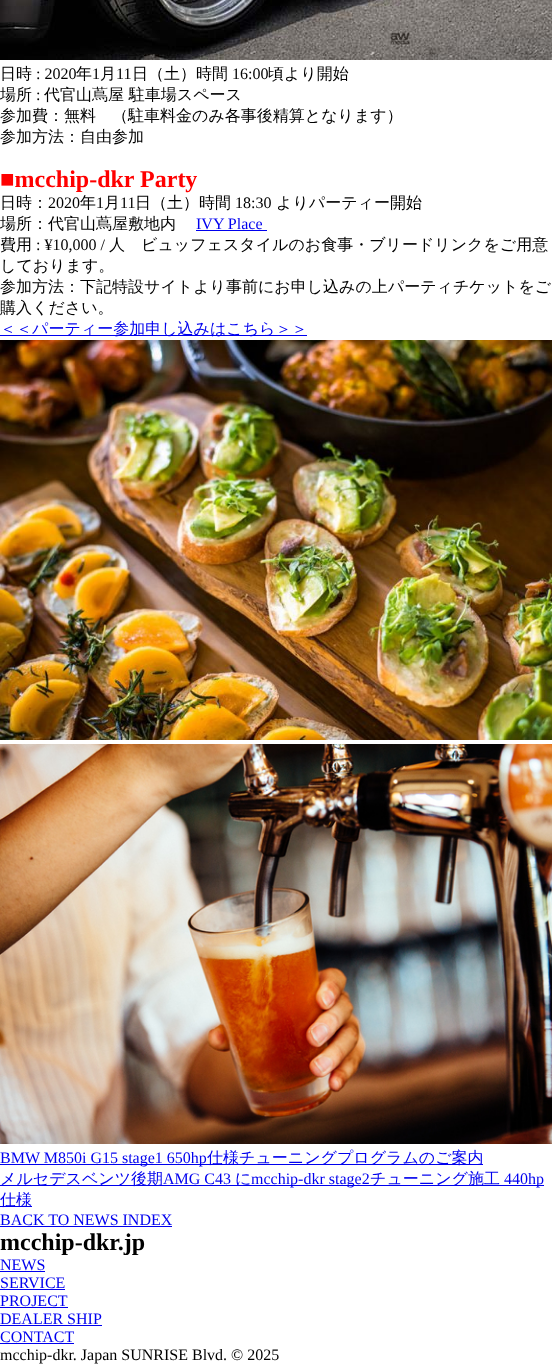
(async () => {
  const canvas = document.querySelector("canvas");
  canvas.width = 552;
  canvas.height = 1364;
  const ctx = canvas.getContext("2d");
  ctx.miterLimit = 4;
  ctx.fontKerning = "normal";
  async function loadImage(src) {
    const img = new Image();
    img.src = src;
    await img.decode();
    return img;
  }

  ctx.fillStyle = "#ffffff";
  ctx.fillRect(0, 0, 552, 1364);
  ctx.drawImage(await loadImage("img/1.png"), 0, 0, 552, 60);
  ctx.fillStyle = "#0000ee";
  ctx.fillRect(196, 230, 71, 1);
  ctx.fillRect(0, 335, 307, 1);
  ctx.drawImage(await loadImage("img/2.png"), 0, 340, 552, 400);
  ctx.drawImage(await loadImage("img/3.png"), 0, 744, 552, 400);
  for (const [x, y, w, h, color] of [
    [0, 1164, 483, 1, "#0000ee"],
    [0, 1185, 544, 1, "#0000ee"],
    [0, 1206, 32, 1, "#0000ee"],
    [0, 1226, 172, 1, "#0000ee"],
    [0, 1271, 45, 1, "#0000ee"],
    [0, 1289, 65, 1, "#0000ee"],
    [0, 1307, 68, 1, "#0000ee"],
    [0, 1325, 102, 1, "#0000ee"],
    [0, 1343, 74, 1, "#0000ee"],
  ]) {
    ctx.fillStyle = color;
    ctx.fillRect(x, y, w, h);
  }
  ctx.font = "500 16px WenQuanYi Zen Hei";
  ctx.fillStyle = "#000000";
  ctx.fillText("日時", 0, 79);
  ctx.font = "16px Liberation Serif";
  ctx.fillText(": 2020", 36, 79);
  ctx.font = "500 16px WenQuanYi Zen Hei";
  ctx.fillText("年", 76, 79);
  ctx.font = "16px Liberation Serif";
  ctx.fillText("1", 92, 79);
  ctx.font = "500 16px WenQuanYi Zen Hei";
  ctx.fillText("月", 100, 79);
  ctx.font = "16px Liberation Serif";
  ctx.fillText("11", 116, 79);
  ctx.font = "500 16px WenQuanYi Zen Hei";
  ctx.fillText("日（土）時間", 132, 79);
  ctx.font = "16px Liberation Serif";
  ctx.fillText("16:00", 232, 79);
  ctx.font = "500 16px WenQuanYi Zen Hei";
  ctx.fillText("頃より開始", 268, 79);
  ctx.fillText("場所", 0, 100);
  ctx.font = "16px Liberation Serif";
  ctx.fillText(":", 36, 100);
  ctx.font = "500 16px WenQuanYi Zen Hei";
  for (const [text, x, y] of [
    ["代官山蔦屋 駐車場スペース", 44, 100],
    ["参加費：無料　（駐車料金のみ各事後精算となります）", 0, 121],
    ["参加方法：自由参加", 0, 142],
  ]) {
    ctx.fillText(text, x, y);
  }
  ctx.font = "bold 24px Liberation Serif";
  ctx.fillStyle = "#ff0000";
  ctx.fillText("■mcchip-dkr Party", 0, 187);
  ctx.font = "500 16px WenQuanYi Zen Hei";
  ctx.fillStyle = "#000000";
  ctx.fillText("日時：", 0, 208);
  ctx.font = "16px Liberation Serif";
  ctx.fillText("2020", 48, 208);
  ctx.font = "500 16px WenQuanYi Zen Hei";
  ctx.fillText("年", 80, 208);
  ctx.font = "16px Liberation Serif";
  ctx.fillText("1", 96, 208);
  ctx.font = "500 16px WenQuanYi Zen Hei";
  ctx.fillText("月", 104, 208);
  ctx.font = "16px Liberation Serif";
  ctx.fillText("11", 120, 208);
  ctx.font = "500 16px WenQuanYi Zen Hei";
  ctx.fillText("日（土）時間", 135, 208);
  ctx.font = "16px Liberation Serif";
  ctx.fillText("18:30", 235, 208);
  ctx.font = "500 16px WenQuanYi Zen Hei";
  ctx.fillText("よりパーティー開始", 276, 208);
  ctx.fillText("場所：代官山蔦屋敷地内", 0, 229);
  ctx.font = "16px Liberation Serif";
  ctx.fillStyle = "#0000ee";
  ctx.fillText("IVY Place", 196, 229);
  ctx.font = "500 16px WenQuanYi Zen Hei";
  ctx.fillStyle = "#000000";
  ctx.fillText("費用", 0, 250);
  ctx.font = "16px Liberation Serif";
  ctx.fillText(": ¥10,000 /", 36, 250);
  ctx.font = "500 16px WenQuanYi Zen Hei";
  for (const [text, x, y] of [
    ["人　ビュッフェスタイルのお食事・ブリードリンクをご用意", 109, 250],
    ["しております。", 0, 271],
    ["参加方法：下記特設サイトより事前にお申し込みの上パーティチケットをご", 0, 292],
    ["購入ください。", 0, 313],
  ]) {
    ctx.fillText(text, x, y);
  }
  ctx.fillStyle = "#0000ee";
  ctx.fillText("＜＜パーティー参加申し込みはこちら＞＞", 0, 334);
  ctx.font = "16px Liberation Serif";
  ctx.fillText("BMW M850i G15 stage1 650hp", 0, 1163);
  ctx.font = "500 16px WenQuanYi Zen Hei";
  ctx.fillText("仕様チューニングプログラムのご案内", 207, 1163);
  ctx.fillText("メルセデスベンツ後期", 0, 1184);
  ctx.font = "16px Liberation Serif";
  ctx.fillText("AMG C43", 163, 1184);
  ctx.font = "500 16px WenQuanYi Zen Hei";
  ctx.fillText("に", 235, 1184);
  ctx.font = "16px Liberation Serif";
  ctx.fillText("mcchip-dkr stage2", 251, 1184);
  ctx.font = "500 16px WenQuanYi Zen Hei";
  ctx.fillText("チューニング施工", 370, 1184);
  ctx.font = "16px Liberation Serif";
  ctx.fillText("440hp", 504, 1184);
  ctx.font = "500 16px WenQuanYi Zen Hei";
  ctx.fillText("仕様", 0, 1205);
  ctx.font = "16px Liberation Serif";
  ctx.fillText("BACK TO NEWS INDEX", 0, 1225);
  ctx.font = "bold 24px Liberation Serif";
  ctx.fillStyle = "#000000";
  ctx.fillText("mcchip-dkr.jp", 0, 1250);
  ctx.font = "16px Liberation Serif";
  ctx.fillStyle = "#0000ee";
  for (const [text, x, y] of [
    ["NEWS", 0, 1270],
    ["SERVICE", 0, 1288],
    ["PROJECT", 0, 1306],
    ["DEALER SHIP", 0, 1324],
    ["CONTACT", 0, 1342],
  ]) {
    ctx.fillText(text, x, y);
  }
  ctx.fillStyle = "#000000";
  ctx.fillText("mcchip-dkr. Japan SUNRISE Blvd. © 2025", 0, 1360);
})();
